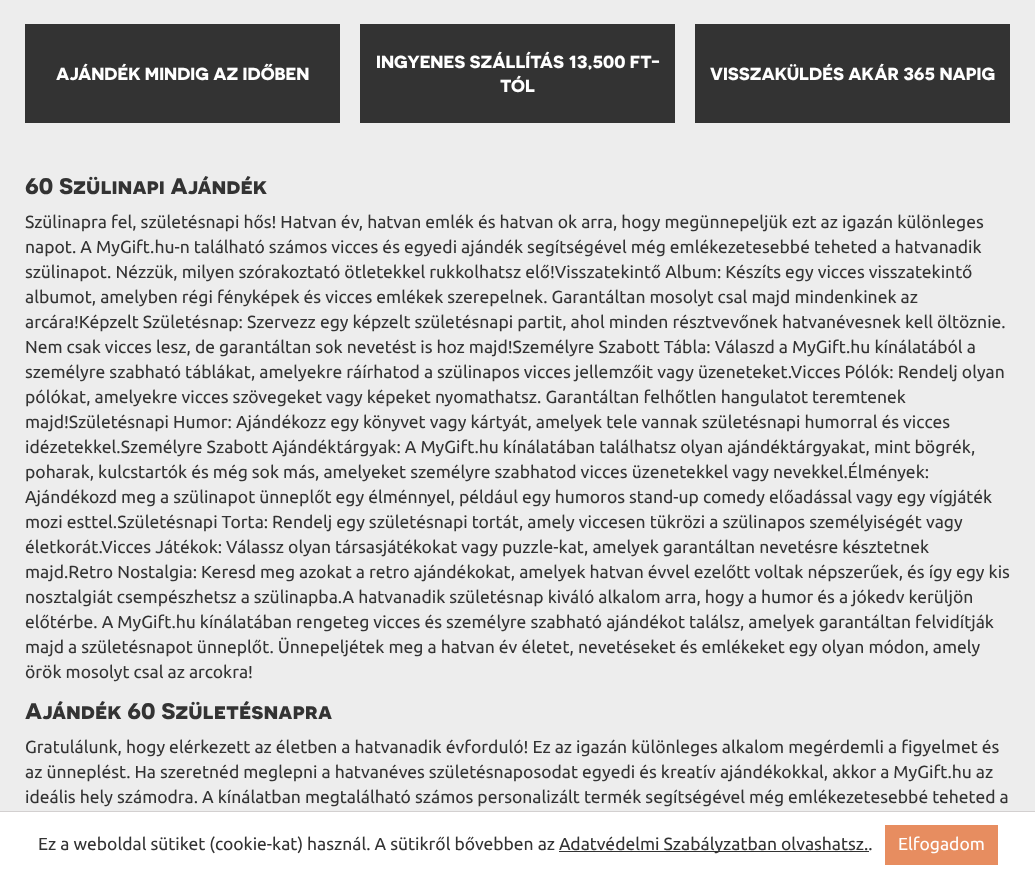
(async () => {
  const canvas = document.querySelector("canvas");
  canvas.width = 1035;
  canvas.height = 877;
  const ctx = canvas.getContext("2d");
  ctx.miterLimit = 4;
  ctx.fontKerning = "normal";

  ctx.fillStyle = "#ededed";
  ctx.fillRect(0, 0, 1035, 877);
  for (const [x, y, w, h, color] of [
    [25, 24, 315, 99, "#333333"],
    [360, 24, 315, 99, "#333333"],
    [695, 24, 315, 99, "#333333"],
    [0, 812, 1035, 65, "#ffffff"],
    [0, 811, 1035, 1, "#d3d0d0"],
    [559, 851, 310, 1, "#333333"],
    [885, 825, 113, 40, "#e78d60"],
  ]) {
    ctx.fillStyle = color;
    ctx.fillRect(x, y, w, h);
  }
  ctx.font = "bold 17.5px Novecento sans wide";
  ctx.fillStyle = "#ffffff";
  for (const [text, x, y] of [
    ["AJÁNDÉK MINDIG AZ IDŐBEN", 56, 80],
    ["INGYENES SZÁLLÍTÁS 13,500 FT-", 376, 68],
    ["TÓL", 500, 92],
    ["VISSZAKÜLDÉS AKÁR 365 NAPIG", 710, 80],
  ]) {
    ctx.fillText(text, x, y);
  }
  ctx.font = "bold 22.6px Novecento sans wide";
  ctx.fillStyle = "#333333";
  ctx.fillText("60 Szülinapi Ajándék", 25, 194);
  ctx.font = "17.5px Ubuntu";
  for (const [text, x, y] of [
    ["Szülinapra fel, születésnapi hős! Hatvan év, hatvan emlék és hatvan ok arra, hogy megünnepeljük ezt az igazán különleges", 25, 228],
    ["napot. A MyGift.hu-n található számos vicces és egyedi ajándék segítségével még emlékezetesebbé teheted a hatvanadik", 25, 253],
    ["szülinapot. Nézzük, milyen szórakoztató ötletekkel rukkolhatsz elő!Visszatekintő Album: Készíts egy vicces visszatekintő", 25, 278],
    ["albumot, amelyben régi fényképek és vicces emlékek szerepelnek. Garantáltan mosolyt csal majd mindenkinek az", 25, 303],
    ["arcára!Képzelt Születésnap: Szervezz egy képzelt születésnapi partit, ahol minden résztvevőnek hatvanévesnek kell öltöznie.", 25, 328],
    ["Nem csak vicces lesz, de garantáltan sok nevetést is hoz majd!Személyre Szabott Tábla: Válaszd a MyGift.hu kínálatából a", 25, 353],
    ["személyre szabható táblákat, amelyekre ráírhatod a szülinapos vicces jellemzőit vagy üzeneteket.Vicces Pólók: Rendelj olyan", 25, 378],
    ["pólókat, amelyekre vicces szövegeket vagy képeket nyomathatsz. Garantáltan felhőtlen hangulatot teremtenek", 25, 403],
    ["majd!Születésnapi Humor: Ajándékozz egy könyvet vagy kártyát, amelyek tele vannak születésnapi humorral és vicces", 25, 428],
    ["idézetekkel.Személyre Szabott Ajándéktárgyak: A MyGift.hu kínálatában találhatsz olyan ajándéktárgyakat, mint bögrék,", 25, 453],
    ["poharak, kulcstartók és még sok más, amelyeket személyre szabhatod vicces üzenetekkel vagy nevekkel.Élmények:", 25, 478],
    ["Ajándékozd meg a szülinapot ünneplőt egy élménnyel, például egy humoros stand-up comedy előadással vagy egy vígjáték", 25, 503],
    ["mozi esttel.Születésnapi Torta: Rendelj egy születésnapi tortát, amely viccesen tükrözi a szülinapos személyiségét vagy", 25, 528],
    ["életkorát.Vicces Játékok: Válassz olyan társasjátékokat vagy puzzle-kat, amelyek garantáltan nevetésre késztetnek", 25, 553],
    ["majd.Retro Nostalgia: Keresd meg azokat a retro ajándékokat, amelyek hatvan évvel ezelőtt voltak népszerűek, és így egy kis", 25, 578],
    ["nosztalgiát csempészhetsz a szülinapba.A hatvanadik születésnap kiváló alkalom arra, hogy a humor és a jókedv kerüljön", 25, 603],
    ["előtérbe. A MyGift.hu kínálatában rengeteg vicces és személyre szabható ajándékot találsz, amelyek garantáltan felvidítják", 25, 628],
    ["majd a születésnapot ünneplőt. Ünnepeljétek meg a hatvan év életet, nevetéseket és emlékeket egy olyan módon, amely", 25, 653],
    ["örök mosolyt csal az arcokra!", 25, 678],
  ]) {
    ctx.fillText(text, x, y);
  }
  ctx.font = "bold 22.6px Novecento sans wide";
  ctx.fillText("Ajándék 60 Születésnapra", 25, 719);
  ctx.font = "17.5px Ubuntu";
  for (const [text, x, y] of [
    ["Gratulálunk, hogy elérkezett az életben a hatvanadik évforduló! Ez az igazán különleges alkalom megérdemli a figyelmet és", 25, 753],
    ["az ünneplést. Ha szeretnéd meglepni a hatvanéves születésnaposodat egyedi és kreatív ajándékokkal, akkor a MyGift.hu az", 25, 778],
    ["ideális hely számodra. A kínálatban megtalálható számos personalizált termék segítségével még emlékezetesebbé teheted a", 25, 803],
    ["Ez a weboldal sütiket (cookie-kat) használ. A sütikről bővebben az", 38, 850],
    ["Adatvédelmi Szabályzatban olvashatsz..", 559, 850],
  ]) {
    ctx.fillText(text, x, y);
  }
  ctx.fillStyle = "#ffffff";
  ctx.fillText("Elfogadom", 898, 850);
})();
